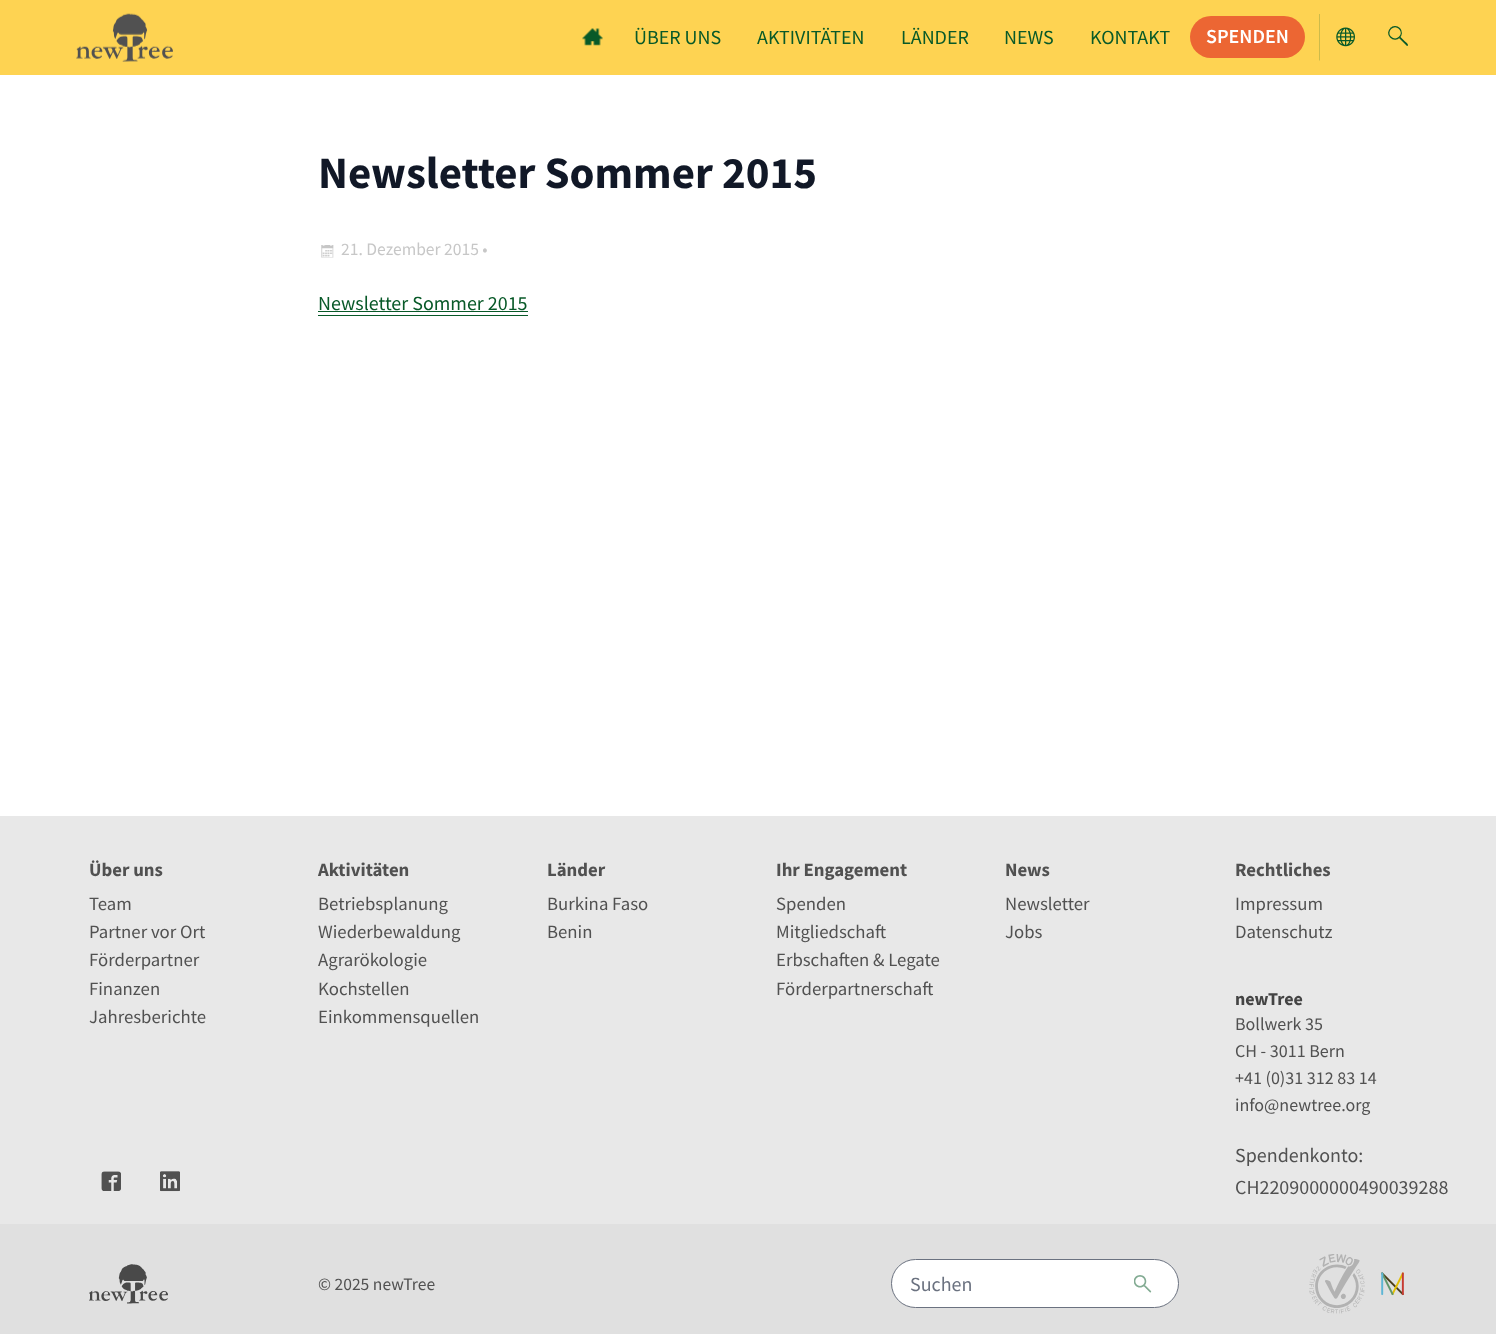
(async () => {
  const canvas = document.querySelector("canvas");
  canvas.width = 1496;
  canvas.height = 1334;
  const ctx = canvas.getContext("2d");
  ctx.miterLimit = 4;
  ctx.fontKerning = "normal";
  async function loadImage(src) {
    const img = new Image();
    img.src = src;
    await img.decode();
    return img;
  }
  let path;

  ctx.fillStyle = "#e8e8e8";
  ctx.fillRect(0, 0, 1496, 1334);
  ctx.fillStyle = "#fed352";
  ctx.fillRect(0, 0, 1496, 75);
  ctx.drawImage(await loadImage("img/1.png"), 76, 13, 97, 49);
  ctx.drawImage(await loadImage("img/2.png"), 582, 28, 21, 18);
  ctx.fillStyle = "#ec6633";
  ctx.beginPath();
  ctx.roundRect(1190, 16, 115, 42, 21);
  ctx.fill();
  ctx.fillStyle = "#cdbb4a";
  path = new Path2D("M1319 61V14H1320V60Z");
  ctx.fill(path);
  ctx.drawImage(await loadImage("img/3.png"), 1336, 27, 19, 20);
  ctx.fillStyle = "#085928";
  path = new Path2D("M1406.5 45.5L1390 29V28C1391.5 27 1393 29.5 1394.5 31L1405 41.5C1406 42.5 1408.5 44 1408 45.5C1407.5 46 1406.5 46 1406.5 45.5Z");
  ctx.fill(path);
  ctx.fillStyle = "#fed352";
  path = new Path2D("M1390 37.5C1384 31.5 1393.5 22 1399.5 28C1406 34.5 1396.5 44 1390 37.5Z");
  ctx.fill(path);
  path = new Path2D("M1390.5 37C1385 31.5 1393.5 23 1399.5 28.5C1405 34.5 1396.5 43 1390.5 37Z");
  ctx.strokeStyle = "#085928";
  ctx.lineWidth = 1.3;
  ctx.stroke(path);
  ctx.fillStyle = "#ffffff";
  ctx.fillRect(0, 75, 1496, 741);
  ctx.drawImage(await loadImage("img/4.png"), 321, 245, 13, 13);
  ctx.fillStyle = "#085928";
  ctx.fillRect(318, 315, 210, 1);
  ctx.fillRect(318, 311, 210, 1);
  ctx.drawImage(await loadImage("img/5.png"), 101, 1171, 20, 20);
  ctx.drawImage(await loadImage("img/6.png"), 160, 1171, 20, 21);
  ctx.fillStyle = "#e0e0e0";
  ctx.fillRect(0, 1224, 1496, 110);
  ctx.drawImage(await loadImage("img/7.png"), 89, 1264, 79, 40);
  ctx.fillStyle = "#ffffff";
  ctx.beginPath();
  ctx.roundRect(891.5, 1259.5, 287, 48, 24);
  ctx.fill();
  ctx.strokeStyle = "#6b7280";
  ctx.lineWidth = 1;
  ctx.stroke();
  ctx.drawImage(await loadImage("img/8.png"), 1134, 1275, 18, 18);
  ctx.drawImage(await loadImage("img/9.png"), 1309, 1254, 56, 60);
  ctx.drawImage(await loadImage("img/10.png"), 1381, 1272, 23, 24);
  ctx.font = "20px Source Sans Pro";
  ctx.fillStyle = "#085928";
  for (const [text, x, y] of [
    ["ÜBER UNS", 634, 44],
    ["AKTIVITÄTEN", 757, 44],
    ["LÄNDER", 901, 44],
    ["NEWS", 1004, 44],
    ["KONTAKT", 1090, 44],
  ]) {
    ctx.fillText(text, x, y);
  }
  ctx.font = "600 20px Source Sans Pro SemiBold";
  ctx.fillStyle = "#ffffff";
  ctx.fillText("SPENDEN", 1206, 43);
  ctx.font = "bold 45px Source Sans Pro";
  ctx.fillStyle = "#111827";
  ctx.fillText("Newsletter Sommer 2015", 318, 188);
  ctx.font = "17.5px Source Sans Pro";
  ctx.fillStyle = "#c7c7c7";
  ctx.fillText("21. Dezember 2015 •", 341, 255);
  ctx.font = "20px Source Sans Pro";
  ctx.fillStyle = "#085928";
  ctx.fillText("Newsletter Sommer 2015", 318, 310);
  ctx.font = "bold 18.75px Source Sans Pro";
  ctx.fillStyle = "#515151";
  ctx.fillText("Über uns", 89, 876);
  ctx.font = "18.75px Source Sans Pro";
  for (const [text, x, y] of [
    ["Team", 89, 910],
    ["Partner vor Ort", 89, 938],
    ["Förderpartner", 89, 966],
    ["Finanzen", 89, 995],
    ["Jahresberichte", 89, 1023],
  ]) {
    ctx.fillText(text, x, y);
  }
  ctx.font = "bold 18.75px Source Sans Pro";
  ctx.fillText("Aktivitäten", 318, 876);
  ctx.font = "18.75px Source Sans Pro";
  for (const [text, x, y] of [
    ["Betriebsplanung", 318, 910],
    ["Wiederbewaldung", 318, 938],
    ["Agrarökologie", 318, 966],
    ["Kochstellen", 318, 995],
    ["Einkommensquellen", 318, 1023],
  ]) {
    ctx.fillText(text, x, y);
  }
  ctx.font = "bold 18.75px Source Sans Pro";
  ctx.fillText("Länder", 547, 876);
  ctx.font = "18.75px Source Sans Pro";
  ctx.fillText("Burkina Faso", 547, 910);
  ctx.fillText("Benin", 547, 938);
  ctx.font = "bold 18.75px Source Sans Pro";
  ctx.fillText("Ihr Engagement", 776, 876);
  ctx.font = "18.75px Source Sans Pro";
  for (const [text, x, y] of [
    ["Spenden", 776, 910],
    ["Mitgliedschaft", 776, 938],
    ["Erbschaften & Legate", 776, 966],
    ["Förderpartnerschaft", 776, 995],
  ]) {
    ctx.fillText(text, x, y);
  }
  ctx.font = "bold 18.75px Source Sans Pro";
  ctx.fillText("News", 1005, 876);
  ctx.font = "18.75px Source Sans Pro";
  ctx.fillText("Newsletter", 1005, 910);
  ctx.fillText("Jobs", 1005, 938);
  ctx.font = "bold 18.75px Source Sans Pro";
  ctx.fillText("Rechtliches", 1235, 876);
  ctx.font = "18.75px Source Sans Pro";
  ctx.fillText("Impressum", 1235, 910);
  ctx.fillText("Datenschutz", 1235, 938);
  ctx.font = "bold 18px Source Sans Pro";
  ctx.fillStyle = "#444444";
  ctx.fillText("newTree", 1235, 1005);
  ctx.font = "18px Source Sans Pro";
  ctx.fillStyle = "#515151";
  for (const [text, x, y] of [
    ["Bollwerk 35", 1235, 1030],
    ["CH - 3011 Bern", 1235, 1057],
    ["+41 (0)31 312 83 14", 1235, 1084],
    ["info@newtree.org", 1235, 1111],
  ]) {
    ctx.fillText(text, x, y);
  }
  ctx.font = "20px Source Sans Pro";
  ctx.fillText("Spendenkonto:", 1235, 1162);
  ctx.fillText("CH2209000000490039288", 1235, 1194);
  ctx.font = "17.5px Source Sans Pro";
  ctx.fillText("© 2025 newTree", 318, 1290);
  ctx.font = "20px Source Sans Pro";
  ctx.fillStyle = "#6b7280";
  ctx.fillText("Suchen", 910, 1291);
})();
